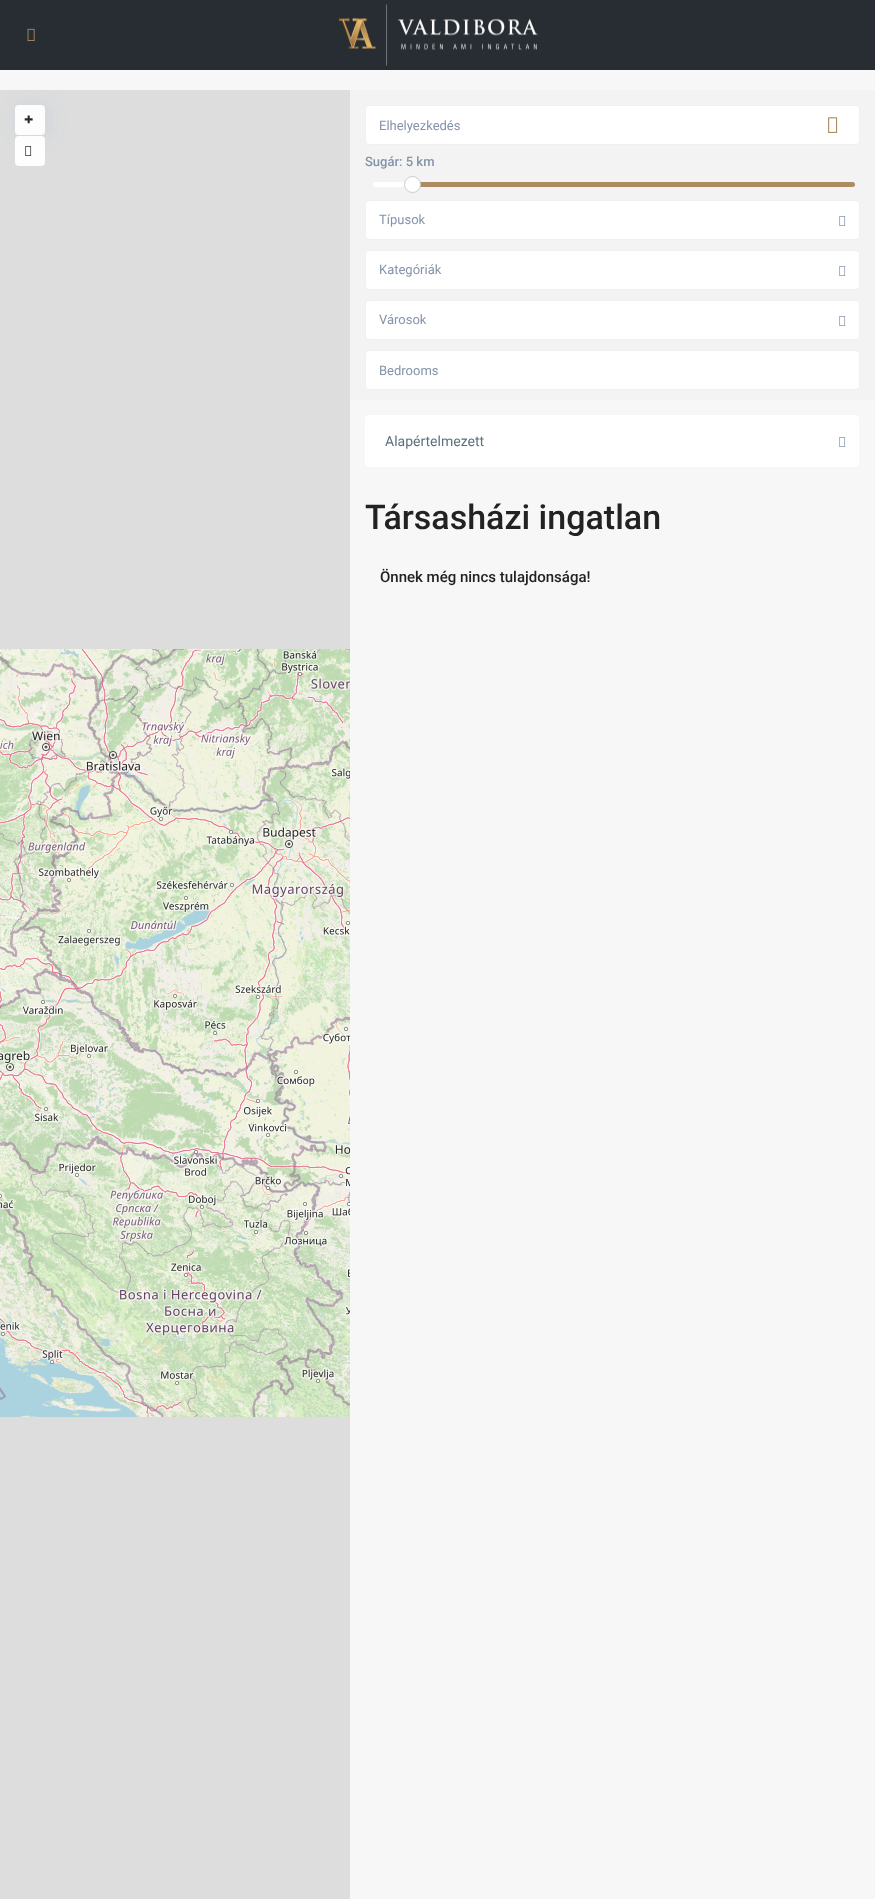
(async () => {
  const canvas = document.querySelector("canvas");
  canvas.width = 875;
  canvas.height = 1899;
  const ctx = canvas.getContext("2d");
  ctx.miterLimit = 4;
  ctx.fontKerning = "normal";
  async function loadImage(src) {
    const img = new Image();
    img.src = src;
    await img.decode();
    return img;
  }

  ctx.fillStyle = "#f7f7f7";
  ctx.fillRect(0, 0, 875, 1899);
  ctx.fillStyle = "#282d33";
  ctx.fillRect(0, 0, 875, 70);
  ctx.drawImage(await loadImage("img/1.png"), 27, 28, 8, 13);
  ctx.drawImage(await loadImage("img/2.png"), 338, 4, 200, 62);
  ctx.fillStyle = "#dddddd";
  ctx.fillRect(0, 90, 350, 1809);
  ctx.drawImage(await loadImage("img/3.png"), 0, 649, 92, 256);
  ctx.drawImage(await loadImage("img/4.png"), 92, 649, 256, 256);
  ctx.drawImage(await loadImage("img/5.png"), 348, 649, 2, 256);
  ctx.drawImage(await loadImage("img/6.png"), 0, 905, 92, 256);
  ctx.drawImage(await loadImage("img/7.png"), 92, 905, 256, 256);
  ctx.drawImage(await loadImage("img/8.png"), 348, 905, 2, 256);
  ctx.drawImage(await loadImage("img/9.png"), 0, 1161, 92, 256);
  ctx.drawImage(await loadImage("img/10.png"), 92, 1161, 256, 256);
  ctx.drawImage(await loadImage("img/11.png"), 348, 1161, 2, 256);
  ctx.fillStyle = "rgba(0, 110, 225, 0.08)";
  ctx.filter = "blur(10px)";
  ctx.beginPath();
  ctx.roundRect(18, 106, 30, 30, 4);
  ctx.fill();
  ctx.filter = "none";
  ctx.fillStyle = "#fdfdfd";
  ctx.beginPath();
  ctx.roundRect(15, 105, 30, 30, 4);
  ctx.fill();
  ctx.fillStyle = "rgba(255, 255, 255, 0.95)";
  ctx.beginPath();
  ctx.roundRect(15, 136, 30, 30, 4);
  ctx.fill();
  ctx.drawImage(await loadImage("img/12.png"), 25, 146, 7, 10);
  ctx.fillStyle = "#f3f3f3";
  ctx.fillRect(350, 90, 525, 310);
  ctx.fillStyle = "#ffffff";
  ctx.beginPath();
  ctx.roundRect(365.5, 105.5, 494, 39, 3.5);
  ctx.fill();
  ctx.strokeStyle = "#f0f0f0";
  ctx.stroke();
  ctx.drawImage(await loadImage("img/13.png"), 828, 117, 10, 16);
  ctx.beginPath();
  ctx.roundRect(373, 182, 482, 5, 2.5);
  ctx.fill();
  ctx.fillStyle = "#ae8c63";
  ctx.beginPath();
  ctx.roundRect(412, 182, 443, 5, 2.5);
  ctx.fill();
  ctx.fillStyle = "#ffffff";
  ctx.beginPath();
  ctx.arc(412.5, 184.5, 8, 0, Math.PI * 2);
  ctx.fill();
  ctx.strokeStyle = "#cccccc";
  ctx.stroke();
  ctx.beginPath();
  ctx.roundRect(365.5, 200.5, 494, 39, 3.5);
  ctx.fill();
  ctx.strokeStyle = "#f0f0f0";
  ctx.stroke();
  ctx.drawImage(await loadImage("img/14.png"), 839, 216, 7, 10);
  ctx.beginPath();
  ctx.roundRect(365.5, 250.5, 494, 39, 3.5);
  ctx.fill();
  ctx.stroke();
  ctx.drawImage(await loadImage("img/14.png"), 839, 266, 7, 10);
  ctx.beginPath();
  ctx.roundRect(365.5, 300.5, 494, 39, 3.5);
  ctx.fill();
  ctx.stroke();
  ctx.drawImage(await loadImage("img/14.png"), 839, 316, 7, 10);
  ctx.beginPath();
  ctx.roundRect(365.5, 350.5, 494, 39, 3.5);
  ctx.fill();
  ctx.stroke();
  ctx.beginPath();
  ctx.roundRect(365, 415, 494, 52, 4);
  ctx.fill();
  ctx.drawImage(await loadImage("img/14.png"), 839, 437, 7, 10);
  ctx.font = "900 16px Noto Sans";
  ctx.fillStyle = "#2b2b2b";
  ctx.fillText("+", 24, 125);
  ctx.font = "13px Roboto";
  ctx.fillStyle = "#8593a9";
  ctx.fillText("Elhelyezkedés", 379, 130);
  ctx.font = "500 13px Roboto";
  ctx.fillText("Sugár: 5 km", 365, 166);
  ctx.font = "13px Roboto";
  for (const [text, x, y] of [
    ["Típusok", 379, 224],
    ["Kategóriák", 379, 274],
    ["Városok", 379, 324],
    ["Bedrooms", 379, 375],
  ]) {
    ctx.fillText(text, x, y);
  }
  ctx.font = "14px Roboto";
  ctx.fillStyle = "#5c727d";
  ctx.fillText("Alapértelmezett", 385, 446);
  ctx.font = "500 34px Roboto";
  ctx.fillStyle = "#222222";
  ctx.fillText("Társasházi ingatlan", 365, 529);
  ctx.font = "500 15px Roboto";
  ctx.fillText("Önnek még nincs tulajdonsága!", 380, 582);
})();
